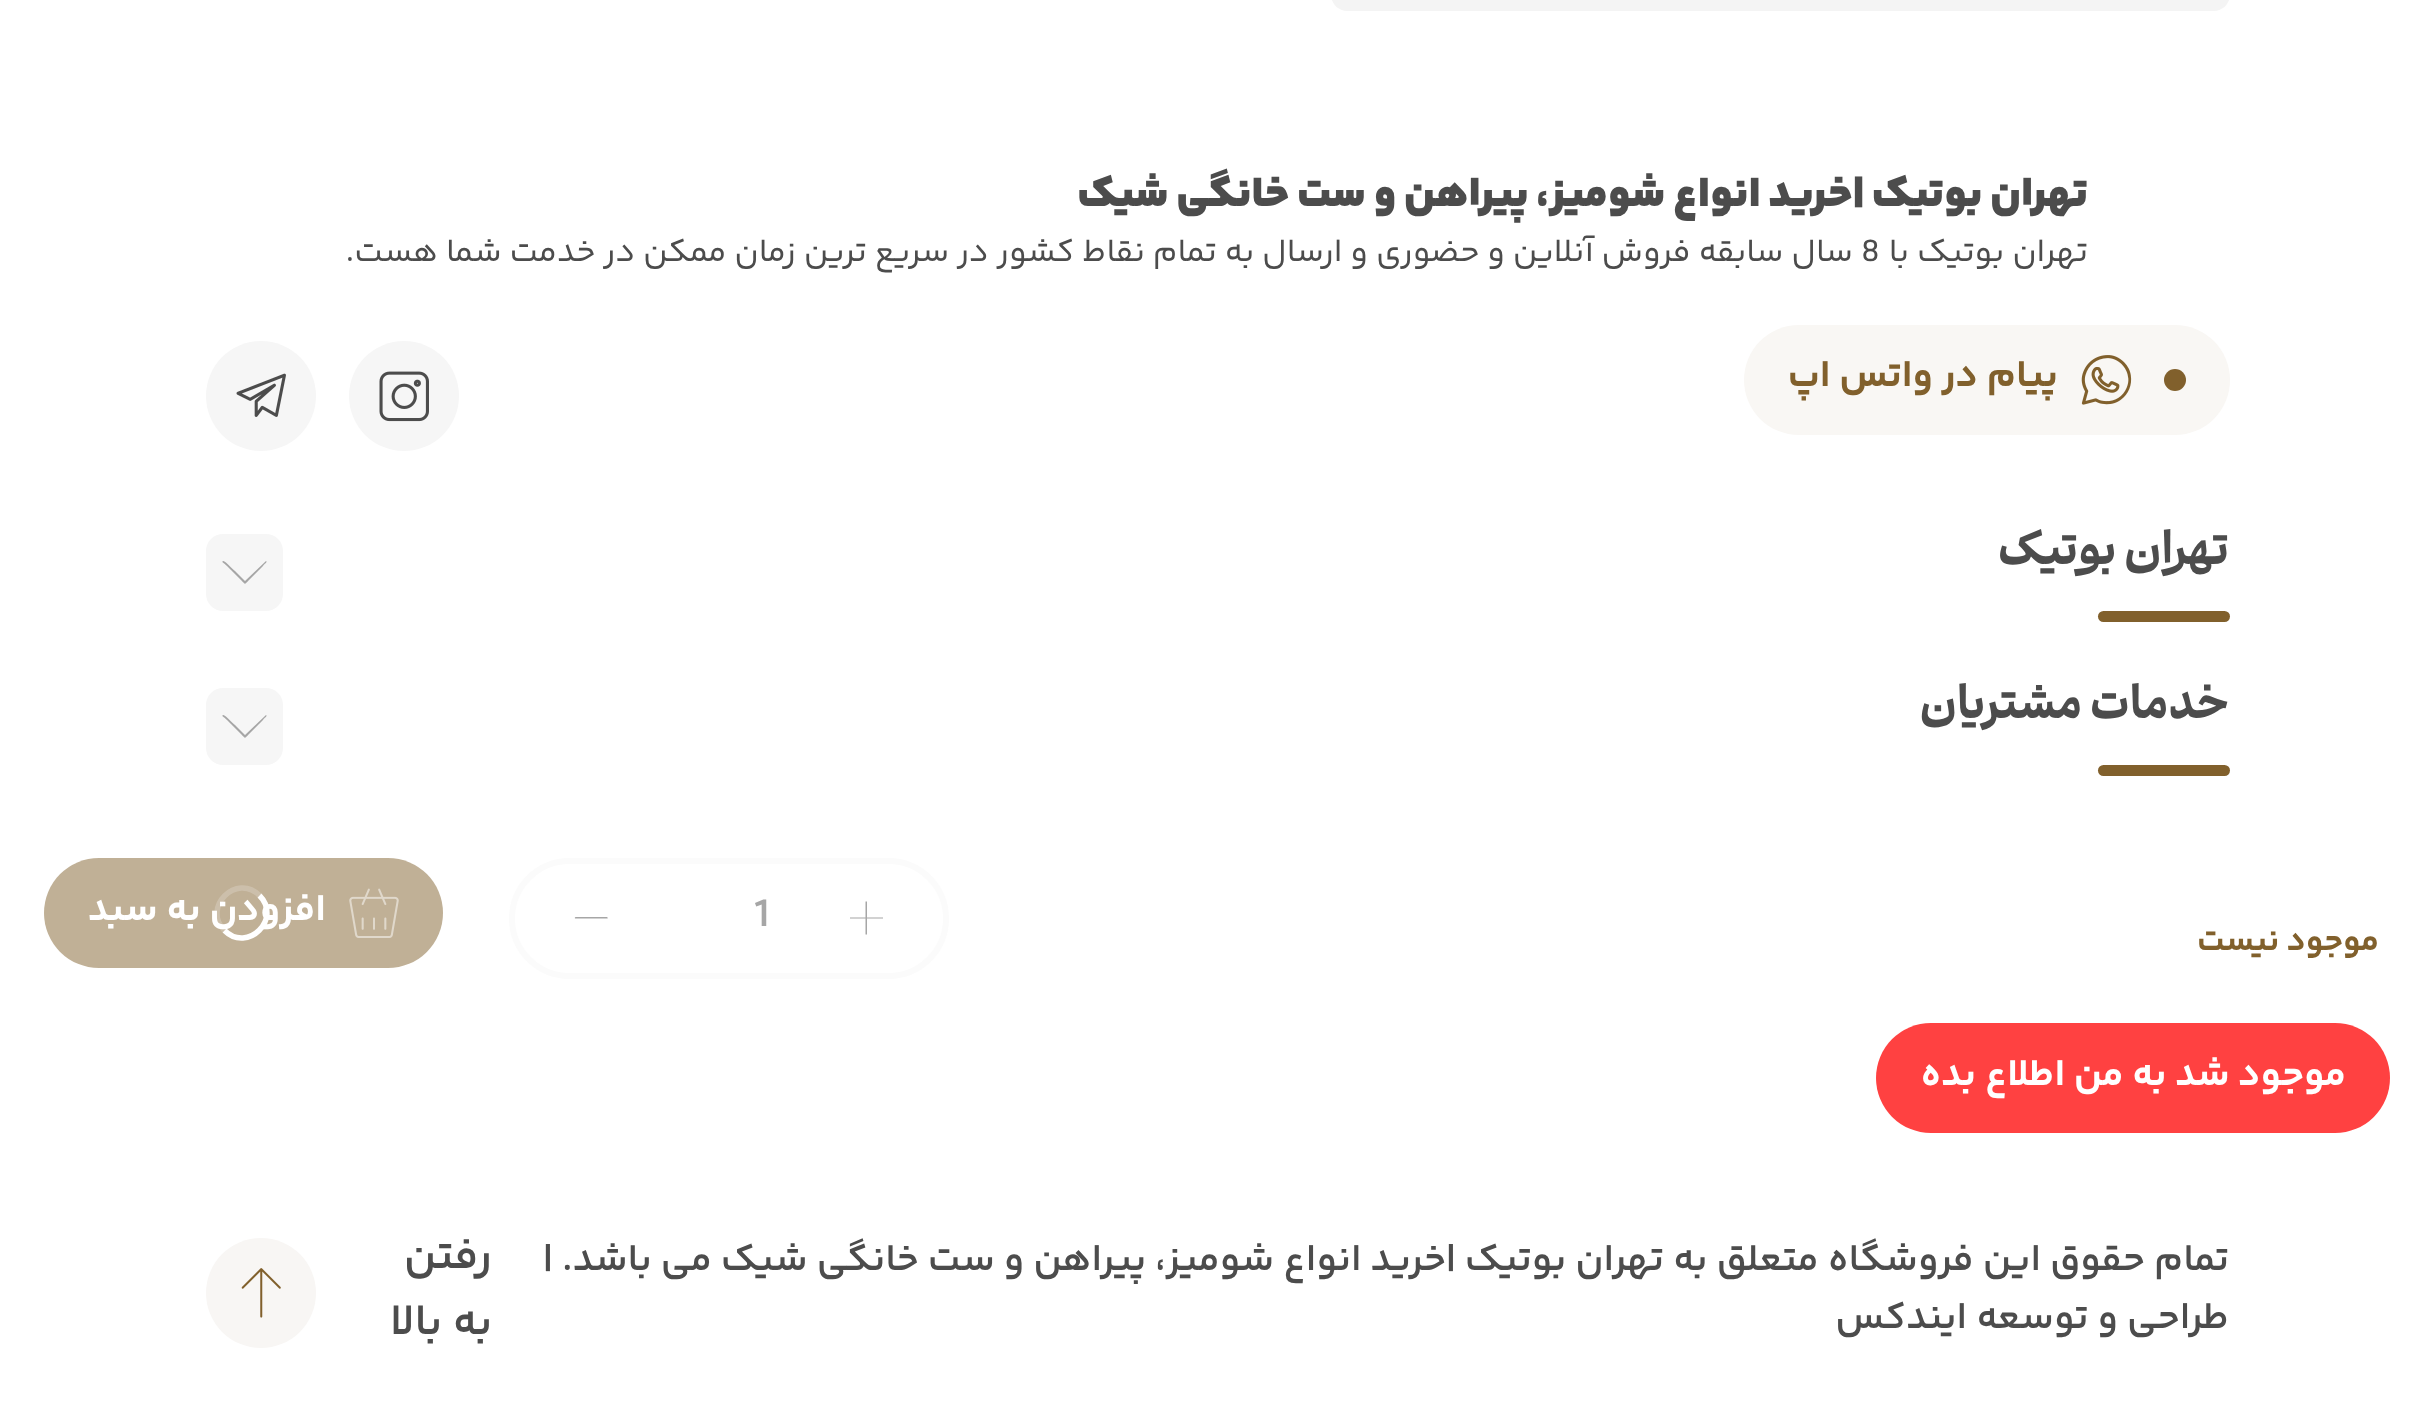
(async () => {
  const canvas = document.querySelector("canvas");
  canvas.width = 2432;
  canvas.height = 1422;
  const ctx = canvas.getContext("2d");
  ctx.miterLimit = 4;
  ctx.fontKerning = "normal";
  async function loadImage(src) {
    const img = new Image();
    img.src = src;
    await img.decode();
    return img;
  }
  let path;

  ctx.fillStyle = "#ffffff";
  ctx.fillRect(0, 0, 2432, 1422);
  ctx.fillStyle = "#f9f7f4";
  ctx.beginPath();
  ctx.roundRect(1744, 325, 486, 110, 55);
  ctx.fill();
  ctx.fillStyle = "#81602c";
  ctx.beginPath();
  ctx.arc(2175, 380, 11, 0, Math.PI * 2);
  ctx.fill();
  ctx.drawImage(await loadImage("img/1.png"), 2081, 355, 51, 50);
  ctx.fillStyle = "#f6f6f6";
  ctx.beginPath();
  ctx.arc(404, 396, 55, 0, Math.PI * 2);
  ctx.fill();
  ctx.drawImage(await loadImage("img/2.png"), 379, 371, 50, 51);
  ctx.beginPath();
  ctx.arc(261, 396, 55, 0, Math.PI * 2);
  ctx.fill();
  ctx.drawImage(await loadImage("img/3.png"), 236, 373, 50, 44);
  ctx.fillStyle = "#81602c";
  ctx.beginPath();
  ctx.roundRect(2098, 611, 132, 11, 5.5);
  ctx.fill();
  ctx.fillStyle = "#f6f6f6";
  ctx.beginPath();
  ctx.roundRect(206, 534, 77, 77, 17);
  ctx.fill();
  ctx.fillStyle = "#a6a6a6";
  path = new Path2D("M266 561L245 581L235 571C233 570 225 560 223 561C221 562 224 563 227 566L241 580C246 585 244 585 249 580L263 566C264 564 268 562 266 561Z");
  ctx.fill(path);
  ctx.fillStyle = "#81602c";
  ctx.beginPath();
  ctx.roundRect(2098, 765, 132, 11, 5.5);
  ctx.fill();
  ctx.fillStyle = "#f6f6f6";
  ctx.beginPath();
  ctx.roundRect(206, 688, 77, 77, 17);
  ctx.fill();
  ctx.fillStyle = "#a6a6a6";
  path = new Path2D("M266 715L245 735L235 725C233 724 225 714 223 715C221 716 224 717 227 720L241 734C246 739 244 739 249 734L263 720C264 718 268 716 266 715Z");
  ctx.fill(path);
  ctx.fillStyle = "#f8f6f4";
  ctx.beginPath();
  ctx.arc(261, 1293, 55, 0, Math.PI * 2);
  ctx.fill();
  ctx.drawImage(await loadImage("img/4.png"), 241, 1268, 40, 50);
  ctx.fillStyle = "#f4f4f4";
  ctx.beginPath();
  ctx.roundRect(1331, -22, 899, 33, 22);
  ctx.fill();
  ctx.beginPath();
  ctx.roundRect(512, 861, 434, 115, 57.5);
  ctx.strokeStyle = "#fbfbfb";
  ctx.lineWidth = 6;
  ctx.stroke();
  ctx.fillStyle = "#a6a6a6";
  path = new Path2D("M865.5 934.5H867V918.5H883V917.5H867V901.5H865.5V917.5H850V918.5H865.5Z");
  ctx.fill(path);
  path = new Path2D("M607 917H575.5L575 917.5C574.5 918 575 918 575 918.5H607.5C607.5 918.5 608 918 607.5 917.5Z");
  ctx.fill(path);
  ctx.fillStyle = "#c0b096";
  ctx.beginPath();
  ctx.roundRect(44, 858, 399, 110, 55);
  ctx.fill();
  ctx.drawImage(await loadImage("img/5.png"), 349, 888, 50, 50);
  path = new Path2D("M259.5 895.5C282.5 918.5 247.5 953.5 224.5 930.5");
  ctx.strokeStyle = "#ffffff";
  ctx.lineWidth = 5.5;
  ctx.stroke(path);
  ctx.fillStyle = "#ff4141";
  ctx.beginPath();
  ctx.roundRect(1876, 1023, 514, 110, 55);
  ctx.fill();
  ctx.direction = "rtl";
  ctx.font = "900 44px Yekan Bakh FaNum";
  ctx.fillStyle = "#4c4c4c";
  ctx.fillText("تهران بوتیک |خرید انواع شومیز، پیراهن و ست خانگی شیک", 2088, 206);
  ctx.font = "33px Yekan Bakh FaNum";
  ctx.fillText("تهران بوتیک با", 2088, 261);
  ctx.direction = "ltr";
  ctx.fillText("8", 1861, 261);
  ctx.direction = "rtl";
  ctx.fillText("سال سابقه فروش آنلاین و حضوری و ارسال به تمام نقاط کشور در سریع ترین زمان ممکن در خدمت شما هست.", 1853, 261);
  ctx.font = "bold 38.5px Yekan Bakh FaNum";
  ctx.fillStyle = "#81602c";
  ctx.fillText("پیام در واتس اپ", 2058, 386);
  ctx.font = "800 44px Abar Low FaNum";
  ctx.fillStyle = "#4c4c4c";
  ctx.fillText("تهران بوتیک", 2229, 564);
  ctx.fillText("خدمات مشتریان", 2229, 718);
  ctx.font = "600 38.5px Yekan Bakh FaNum";
  ctx.fillText("تمام حقوق این فروشگاه متعلق به", 2229, 1270);
  ctx.fillText("تهران بوتیک |خرید انواع شومیز، پیراهن و ست خانگی شیک می باشد.", 1664, 1270);
  ctx.direction = "ltr";
  ctx.fillText("|", 543, 1270);
  ctx.direction = "rtl";
  ctx.fillText("طراحی و توسعه", 2229, 1328);
  ctx.fillText("ایندکس", 1967, 1328);
  ctx.font = "600 44px Yekan Bakh FaNum";
  ctx.fillText("رفتن", 492, 1268);
  ctx.fillText("به بالا", 492, 1334);
  ctx.direction = "ltr";
  ctx.font = "600 41px Yekan Bakh FaNum";
  ctx.fillStyle = "#a6a6a6";
  ctx.fillText("1", 754, 926);
  ctx.direction = "rtl";
  ctx.font = "bold 38.5px Yekan Bakh FaNum";
  ctx.fillStyle = "#ffffff";
  ctx.fillText("افزودن به سبد", 326, 920);
  path = new Path2D("M224.5 930.5C201.5 907.5 236.5 872.5 259.5 895.5");
  ctx.strokeStyle = "rgba(255, 255, 255, 0.2)";
  ctx.stroke(path);
  ctx.font = "bold 33px Yekan Bakh FaNum";
  ctx.fillStyle = "#81602c";
  ctx.fillText("موجود نیست", 2379, 950);
  ctx.font = "bold 38.5px Yekan Bakh FaNum";
  ctx.fillStyle = "#ffffff";
  ctx.fillText("موجود شد به من اطلاع بده", 2346, 1085);
})();
